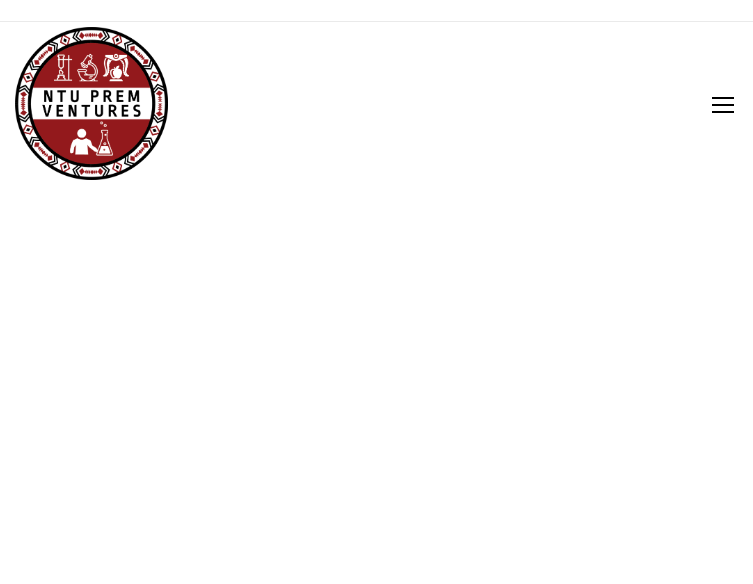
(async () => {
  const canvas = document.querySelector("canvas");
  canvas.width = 753;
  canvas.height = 584;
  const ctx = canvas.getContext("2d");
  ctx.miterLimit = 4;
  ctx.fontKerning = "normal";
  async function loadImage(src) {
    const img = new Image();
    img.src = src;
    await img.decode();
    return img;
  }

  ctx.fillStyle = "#ffffff";
  ctx.fillRect(0, 0, 753, 584);
  ctx.fillStyle = "#eaeaea";
  ctx.fillRect(0, 21, 753, 1);
  ctx.drawImage(await loadImage("img/1.png"), 15, 27, 153, 153);
  for (const [x, y, w, h, color] of [
    [712, 97, 22, 2, "#000000"],
    [712, 104, 22, 2, "#000000"],
    [712, 111, 22, 2, "#000000"],
  ]) {
    ctx.fillStyle = color;
    ctx.fillRect(x, y, w, h);
  }
})();
